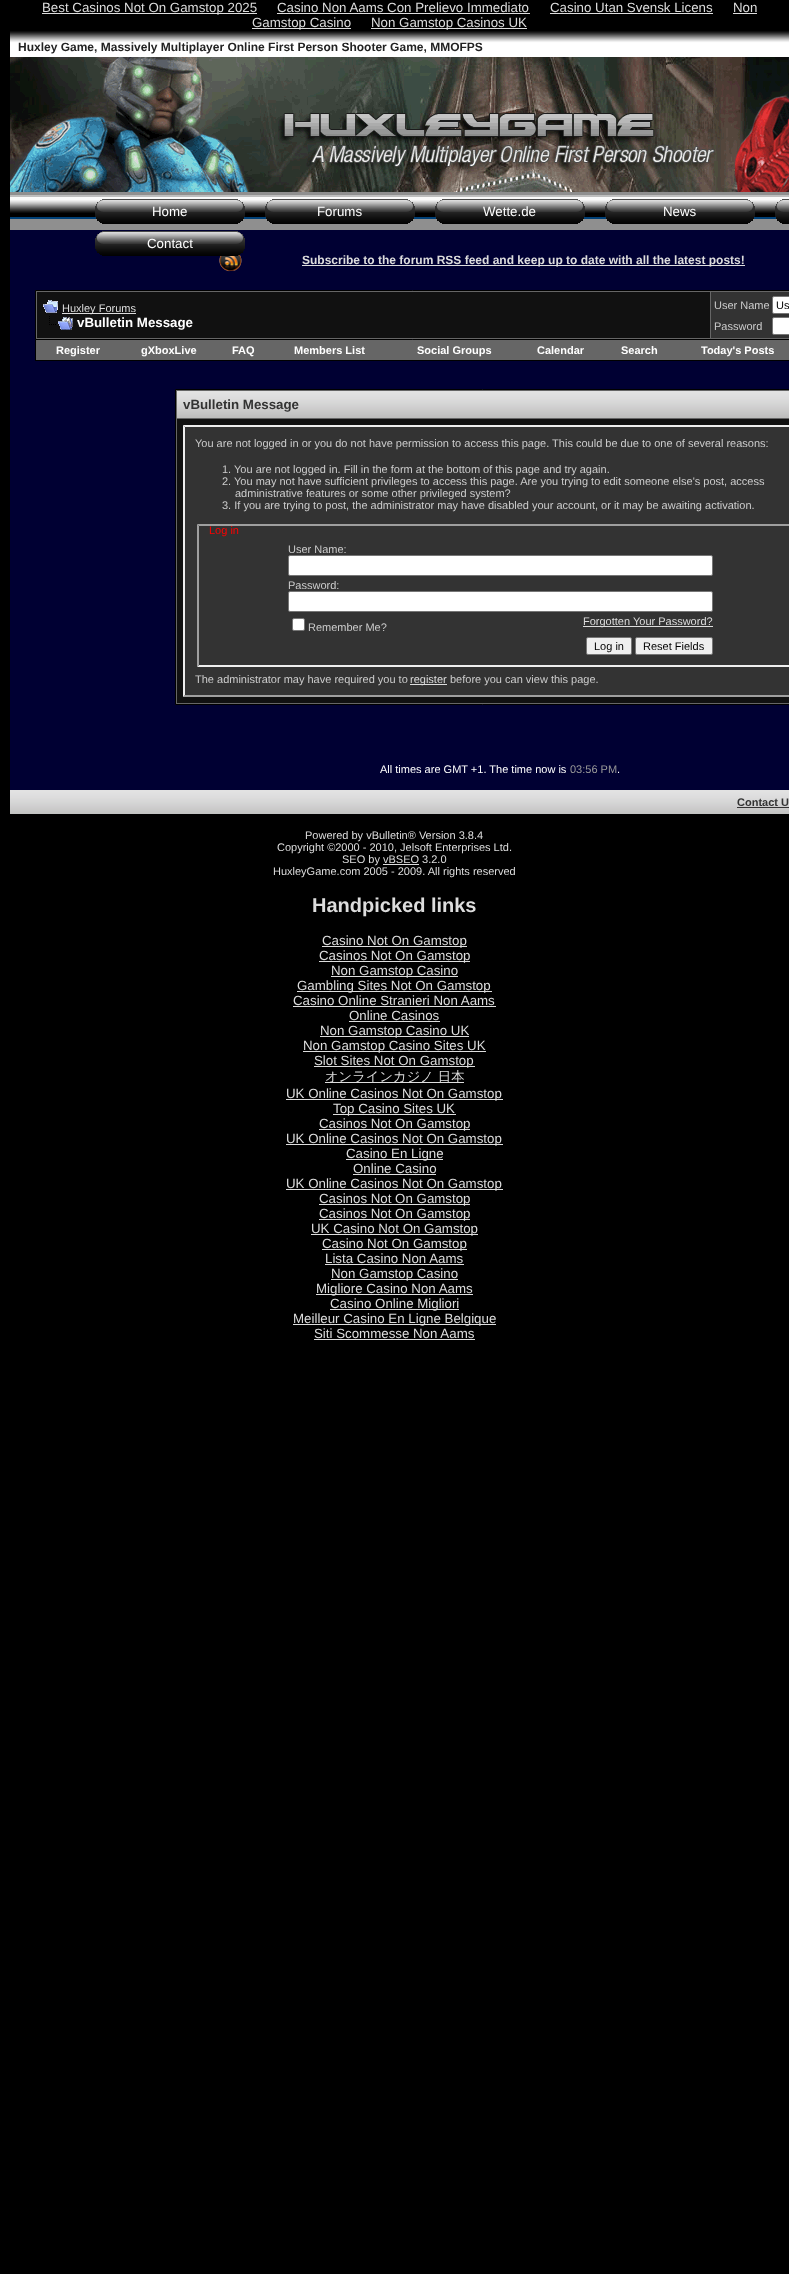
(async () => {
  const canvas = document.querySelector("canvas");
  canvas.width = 789;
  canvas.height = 2274;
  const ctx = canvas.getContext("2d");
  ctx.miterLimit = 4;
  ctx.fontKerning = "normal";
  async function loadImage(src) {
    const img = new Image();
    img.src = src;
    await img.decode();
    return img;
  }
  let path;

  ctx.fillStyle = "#000000";
  ctx.fillRect(0, 0, 789, 2274);
  for (const [x, y, w, h, color] of [
    [42, 13, 215, 1, "#dddddd"],
    [277, 13, 253, 1, "#dddddd"],
    [550, 13, 163, 1, "#dddddd"],
    [733, 13, 24, 1, "#dddddd"],
    [252, 28, 99, 1, "#dddddd"],
    [371, 28, 156, 1, "#dddddd"],
  ]) {
    ctx.fillStyle = color;
    ctx.fillRect(x, y, w, h);
  }
  ctx.drawImage(await loadImage("img/1.png"), 10, 31, 779, 26);
  ctx.drawImage(await loadImage("img/2.png"), 10, 57, 779, 135);
  ctx.drawImage(await loadImage("img/3.png"), 10, 192, 779, 38);
  ctx.drawImage(await loadImage("img/4.png"), 95, 199, 150, 25);
  ctx.drawImage(await loadImage("img/4.png"), 265, 199, 150, 25);
  ctx.drawImage(await loadImage("img/4.png"), 435, 199, 150, 25);
  ctx.drawImage(await loadImage("img/4.png"), 605, 199, 150, 25);
  ctx.drawImage(await loadImage("img/5.png"), 775, 199, 14, 25);
  ctx.fillStyle = "#000033";
  ctx.fillRect(10, 230, 779, 560);
  ctx.drawImage(await loadImage("img/7.png"), 219, 253, 23, 19);
  ctx.drawImage(await loadImage("img/6.png"), 95, 231, 150, 25);
  ctx.fillStyle = "#dddddd";
  ctx.fillRect(302, 265, 443, 1);
  ctx.fillStyle = "#666666";
  ctx.beginPath();
  ctx.rect(35.5, 290.5, 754, 49);
  ctx.fill();
  ctx.strokeStyle = "#000000";
  ctx.stroke();
  ctx.fillStyle = "#111111";
  ctx.fillRect(37, 292, 673, 46);
  ctx.drawImage(await loadImage("img/8.png"), 43, 300, 15, 13);
  ctx.fillStyle = "#dddddd";
  ctx.fillRect(62, 313, 74, 1);
  ctx.drawImage(await loadImage("img/9.png"), 49, 316, 24, 14);
  ctx.fillStyle = "#333333";
  ctx.fillRect(711, 292, 78, 46);
  ctx.fillStyle = "#ffffff";
  ctx.beginPath();
  ctx.roundRect(772.5, 296.5, 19, 17, 1.5);
  ctx.fill();
  ctx.strokeStyle = "#767676";
  ctx.stroke();
  ctx.beginPath();
  ctx.roundRect(772.5, 317.5, 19, 17, 1.5);
  ctx.fill();
  ctx.stroke();
  for (const [x, y, w, h, color] of [
    [36, 340, 753, 20, "#666666"],
    [35, 360, 754, 1, "#000000"],
    [35, 340, 1, 21, "#000000"],
  ]) {
    ctx.fillStyle = color;
    ctx.fillRect(x, y, w, h);
  }
  ctx.fillStyle = "#666666";
  ctx.beginPath();
  ctx.rect(175.5, 389.5, 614, 315);
  ctx.fill();
  ctx.strokeStyle = "#000000";
  ctx.stroke();
  ctx.drawImage(await loadImage("img/10.png"), 177, 391, 612, 27);
  ctx.fillStyle = "#111111";
  ctx.fillRect(177, 419, 612, 284);
  ctx.fillStyle = "#333333";
  ctx.fillRect(183, 425, 606, 272);
  ctx.fillStyle = "#eeeeee";
  path = new Path2D("M183 425H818L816 427H185Z");
  ctx.fill(path);
  ctx.fillStyle = "#9f9f9f";
  path = new Path2D("M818 697H183L185 695H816Z");
  ctx.fill(path);
  ctx.fillStyle = "#eeeeee";
  path = new Path2D("M183 697V425L185 427V695Z");
  ctx.fill(path);
  ctx.fillStyle = "#9f9f9f";
  path = new Path2D("M197 524H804L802 526H199Z");
  ctx.fill(path);
  ctx.fillStyle = "#efefef";
  path = new Path2D("M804 667H197L199 665H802Z");
  ctx.fill(path);
  ctx.fillStyle = "#9f9f9f";
  path = new Path2D("M197 667V524L199 526V665Z");
  ctx.fill(path);
  ctx.fillStyle = "#ffffff";
  ctx.beginPath();
  ctx.roundRect(288.5, 555.5, 424, 20, 1.5);
  ctx.fill();
  ctx.strokeStyle = "#767676";
  ctx.stroke();
  ctx.beginPath();
  ctx.roundRect(288.5, 591.5, 424, 20, 1.5);
  ctx.fill();
  ctx.stroke();
  ctx.beginPath();
  ctx.roundRect(292.5, 618.5, 12, 12, 1.5);
  ctx.fill();
  ctx.stroke();
  ctx.fillStyle = "#dddddd";
  ctx.fillRect(583, 626, 130, 1);
  ctx.fillStyle = "#efefef";
  ctx.beginPath();
  ctx.roundRect(586.5, 637.5, 45, 17, 1.5);
  ctx.fill();
  ctx.stroke();
  ctx.beginPath();
  ctx.roundRect(635.5, 637.5, 77, 17, 1.5);
  ctx.fill();
  ctx.stroke();
  ctx.fillStyle = "#dddddd";
  ctx.fillRect(410, 684, 37, 1);
  ctx.drawImage(await loadImage("img/11.png"), 10, 790, 779, 24);
  for (const [x, y, w, h, color] of [
    [737, 807, 52, 1, "#333333"],
    [383, 864, 36, 1, "#dddddd"],
    [322, 946, 145, 1, "#dddddd"],
    [319, 961, 151, 1, "#dddddd"],
    [331, 976, 127, 1, "#dddddd"],
    [297, 991, 195, 1, "#dddddd"],
    [293, 1006, 203, 1, "#dddddd"],
    [349, 1021, 91, 1, "#dddddd"],
    [320, 1036, 149, 1, "#dddddd"],
    [303, 1051, 183, 1, "#dddddd"],
    [314, 1066, 161, 1, "#dddddd"],
    [325, 1082, 139, 1, "#dddddd"],
    [286, 1099, 217, 1, "#dddddd"],
    [333, 1114, 123, 1, "#dddddd"],
    [319, 1129, 151, 1, "#dddddd"],
    [286, 1144, 217, 1, "#dddddd"],
    [346, 1159, 97, 1, "#dddddd"],
    [353, 1174, 83, 1, "#dddddd"],
    [286, 1189, 217, 1, "#dddddd"],
    [319, 1204, 151, 1, "#dddddd"],
    [319, 1219, 151, 1, "#dddddd"],
    [311, 1234, 167, 1, "#dddddd"],
    [322, 1249, 145, 1, "#dddddd"],
    [325, 1264, 139, 1, "#dddddd"],
    [331, 1279, 127, 1, "#dddddd"],
    [316, 1294, 157, 1, "#dddddd"],
    [330, 1309, 129, 1, "#dddddd"],
    [293, 1324, 203, 1, "#dddddd"],
    [314, 1339, 161, 1, "#dddddd"],
  ]) {
    ctx.fillStyle = color;
    ctx.fillRect(x, y, w, h);
  }
  ctx.font = "13.3px Liberation Sans";
  for (const [text, x, y] of [
    ["Best Casinos Not On Gamstop 2025", 42, 12],
    ["Casino Non Aams Con Prelievo Immediato", 277, 12],
    ["Casino Utan Svensk Licens", 550, 12],
    ["Non", 733, 12],
    ["Gamstop Casino", 252, 27],
    ["Non Gamstop Casinos UK", 371, 27],
  ]) {
    ctx.fillText(text, x, y);
  }
  ctx.font = "bold 12px Liberation Sans";
  ctx.fillStyle = "#222222";
  ctx.fillText("Huxley Game, Massively Multiplayer Online First Person Shooter Game, MMOFPS", 18, 51);
  ctx.font = "13.3px Liberation Sans";
  ctx.fillStyle = "#ffffff";
  for (const [text, x, y] of [
    ["Home", 152, 216],
    ["Forums", 317, 216],
    ["Wette.de", 483, 216],
    ["News", 663, 216],
    ["Contact", 147, 248],
  ]) {
    ctx.fillText(text, x, y);
  }
  ctx.font = "bold 12px Liberation Sans";
  ctx.fillStyle = "#dddddd";
  ctx.fillText("Subscribe to the forum RSS feed and keep up to date with all the latest posts!", 302, 264);
  ctx.font = "11px Liberation Sans";
  ctx.fillText("Huxley Forums", 62, 312);
  ctx.font = "bold 13.3px Liberation Sans";
  ctx.fillStyle = "#ffffff";
  ctx.fillText("vBulletin Message", 77, 327);
  ctx.font = "11px Liberation Sans";
  ctx.fillStyle = "#cccccc";
  ctx.fillText("User Name", 714, 309);
  ctx.fillStyle = "#000000";
  ctx.fillText("Us", 776, 309);
  ctx.fillStyle = "#cccccc";
  ctx.fillText("Password", 714, 330);
  ctx.font = "bold 11px Liberation Sans";
  ctx.fillStyle = "#ffffff";
  for (const [text, x, y] of [
    ["Register", 56, 354],
    ["gXboxLive", 141, 354],
    ["FAQ", 232, 354],
    ["Members List", 294, 354],
    ["Social Groups", 417, 354],
    ["Calendar", 537, 354],
    ["Search", 621, 354],
    ["Today's Posts", 701, 354],
  ]) {
    ctx.fillText(text, x, y);
  }
  ctx.font = "bold 13.3px Liberation Sans";
  ctx.fillStyle = "#333333";
  ctx.fillText("vBulletin Message", 183, 409);
  ctx.font = "11px Liberation Sans";
  ctx.fillStyle = "#cccccc";
  for (const [text, x, y] of [
    ["You are not logged in or you do not have permission to access this page. This could be due to one of several reasons:", 195, 447],
    ["1. You are not logged in. Fill in the form at the bottom of this page and try again.", 222, 473],
    ["2. You may not have sufficient privileges to access this page. Are you trying to edit someone else's post, access", 222, 485],
    ["administrative features or some other privileged system?", 235, 497],
    ["3. If you are trying to post, the administrator may have disabled your account, or it may be awaiting activation.", 222, 509],
  ]) {
    ctx.fillText(text, x, y);
  }
  ctx.fillStyle = "#ff0000";
  ctx.fillText("Log in", 209, 534);
  ctx.fillStyle = "#cccccc";
  for (const [text, x, y] of [
    ["User Name:", 288, 553],
    ["Password:", 288, 589],
    ["Remember Me?", 308, 631],
  ]) {
    ctx.fillText(text, x, y);
  }
  ctx.fillStyle = "#dddddd";
  ctx.fillText("Forgotten Your Password?", 583, 625);
  ctx.fillStyle = "#000000";
  ctx.fillText("Log in", 594, 650);
  ctx.fillText("Reset Fields", 643, 650);
  ctx.fillStyle = "#cccccc";
  ctx.fillText("The administrator may have required you to", 195, 683);
  ctx.fillStyle = "#dddddd";
  ctx.fillText("register", 410, 683);
  ctx.fillStyle = "#cccccc";
  ctx.fillText("before you can view this page.", 450, 683);
  ctx.fillStyle = "#ffffff";
  ctx.fillText("All times are GMT +1. The time now is", 380, 773);
  ctx.fillStyle = "#999999";
  ctx.fillText("03:56 PM", 570, 773);
  ctx.fillStyle = "#ffffff";
  ctx.fillText(".", 617, 773);
  ctx.font = "bold 11px Liberation Sans";
  ctx.fillStyle = "#333333";
  ctx.fillText("Contact U", 737, 806);
  ctx.font = "11px Liberation Sans";
  ctx.fillStyle = "#dddddd";
  for (const [text, x, y] of [
    ["Powered by vBulletin® Version 3.8.4", 305, 839],
    ["Copyright ©2000 - 2010, Jelsoft Enterprises Ltd.", 277, 851],
    ["SEO by vBSEO 3.2.0", 342, 863],
    ["HuxleyGame.com 2005 - 2009. All rights reserved", 273, 875],
  ]) {
    ctx.fillText(text, x, y);
  }
  ctx.font = "bold 20px Liberation Sans";
  ctx.fillText("Handpicked links", 312, 912);
  ctx.font = "13.3px Liberation Sans";
  for (const [text, x, y] of [
    ["Casino Not On Gamstop", 322, 945],
    ["Casinos Not On Gamstop", 319, 960],
    ["Non Gamstop Casino", 331, 975],
    ["Gambling Sites Not On Gamstop", 297, 990],
    ["Casino Online Stranieri Non Aams", 293, 1005],
    ["Online Casinos", 349, 1020],
    ["Non Gamstop Casino UK", 320, 1035],
    ["Non Gamstop Casino Sites UK", 303, 1050],
    ["Slot Sites Not On Gamstop", 314, 1065],
  ]) {
    ctx.fillText(text, x, y);
  }
  ctx.font = "500 13.3px WenQuanYi Zen Hei";
  ctx.fillText("オンラインカジノ 日本", 325, 1081);
  ctx.font = "13.3px Liberation Sans";
  for (const [text, x, y] of [
    ["UK Online Casinos Not On Gamstop", 286, 1098],
    ["Top Casino Sites UK", 333, 1113],
    ["Casinos Not On Gamstop", 319, 1128],
    ["UK Online Casinos Not On Gamstop", 286, 1143],
    ["Casino En Ligne", 346, 1158],
    ["Online Casino", 353, 1173],
    ["UK Online Casinos Not On Gamstop", 286, 1188],
    ["Casinos Not On Gamstop", 319, 1203],
    ["Casinos Not On Gamstop", 319, 1218],
    ["UK Casino Not On Gamstop", 311, 1233],
    ["Casino Not On Gamstop", 322, 1248],
    ["Lista Casino Non Aams", 325, 1263],
    ["Non Gamstop Casino", 331, 1278],
    ["Migliore Casino Non Aams", 316, 1293],
    ["Casino Online Migliori", 330, 1308],
    ["Meilleur Casino En Ligne Belgique", 293, 1323],
    ["Siti Scommesse Non Aams", 314, 1338],
  ]) {
    ctx.fillText(text, x, y);
  }
})();
